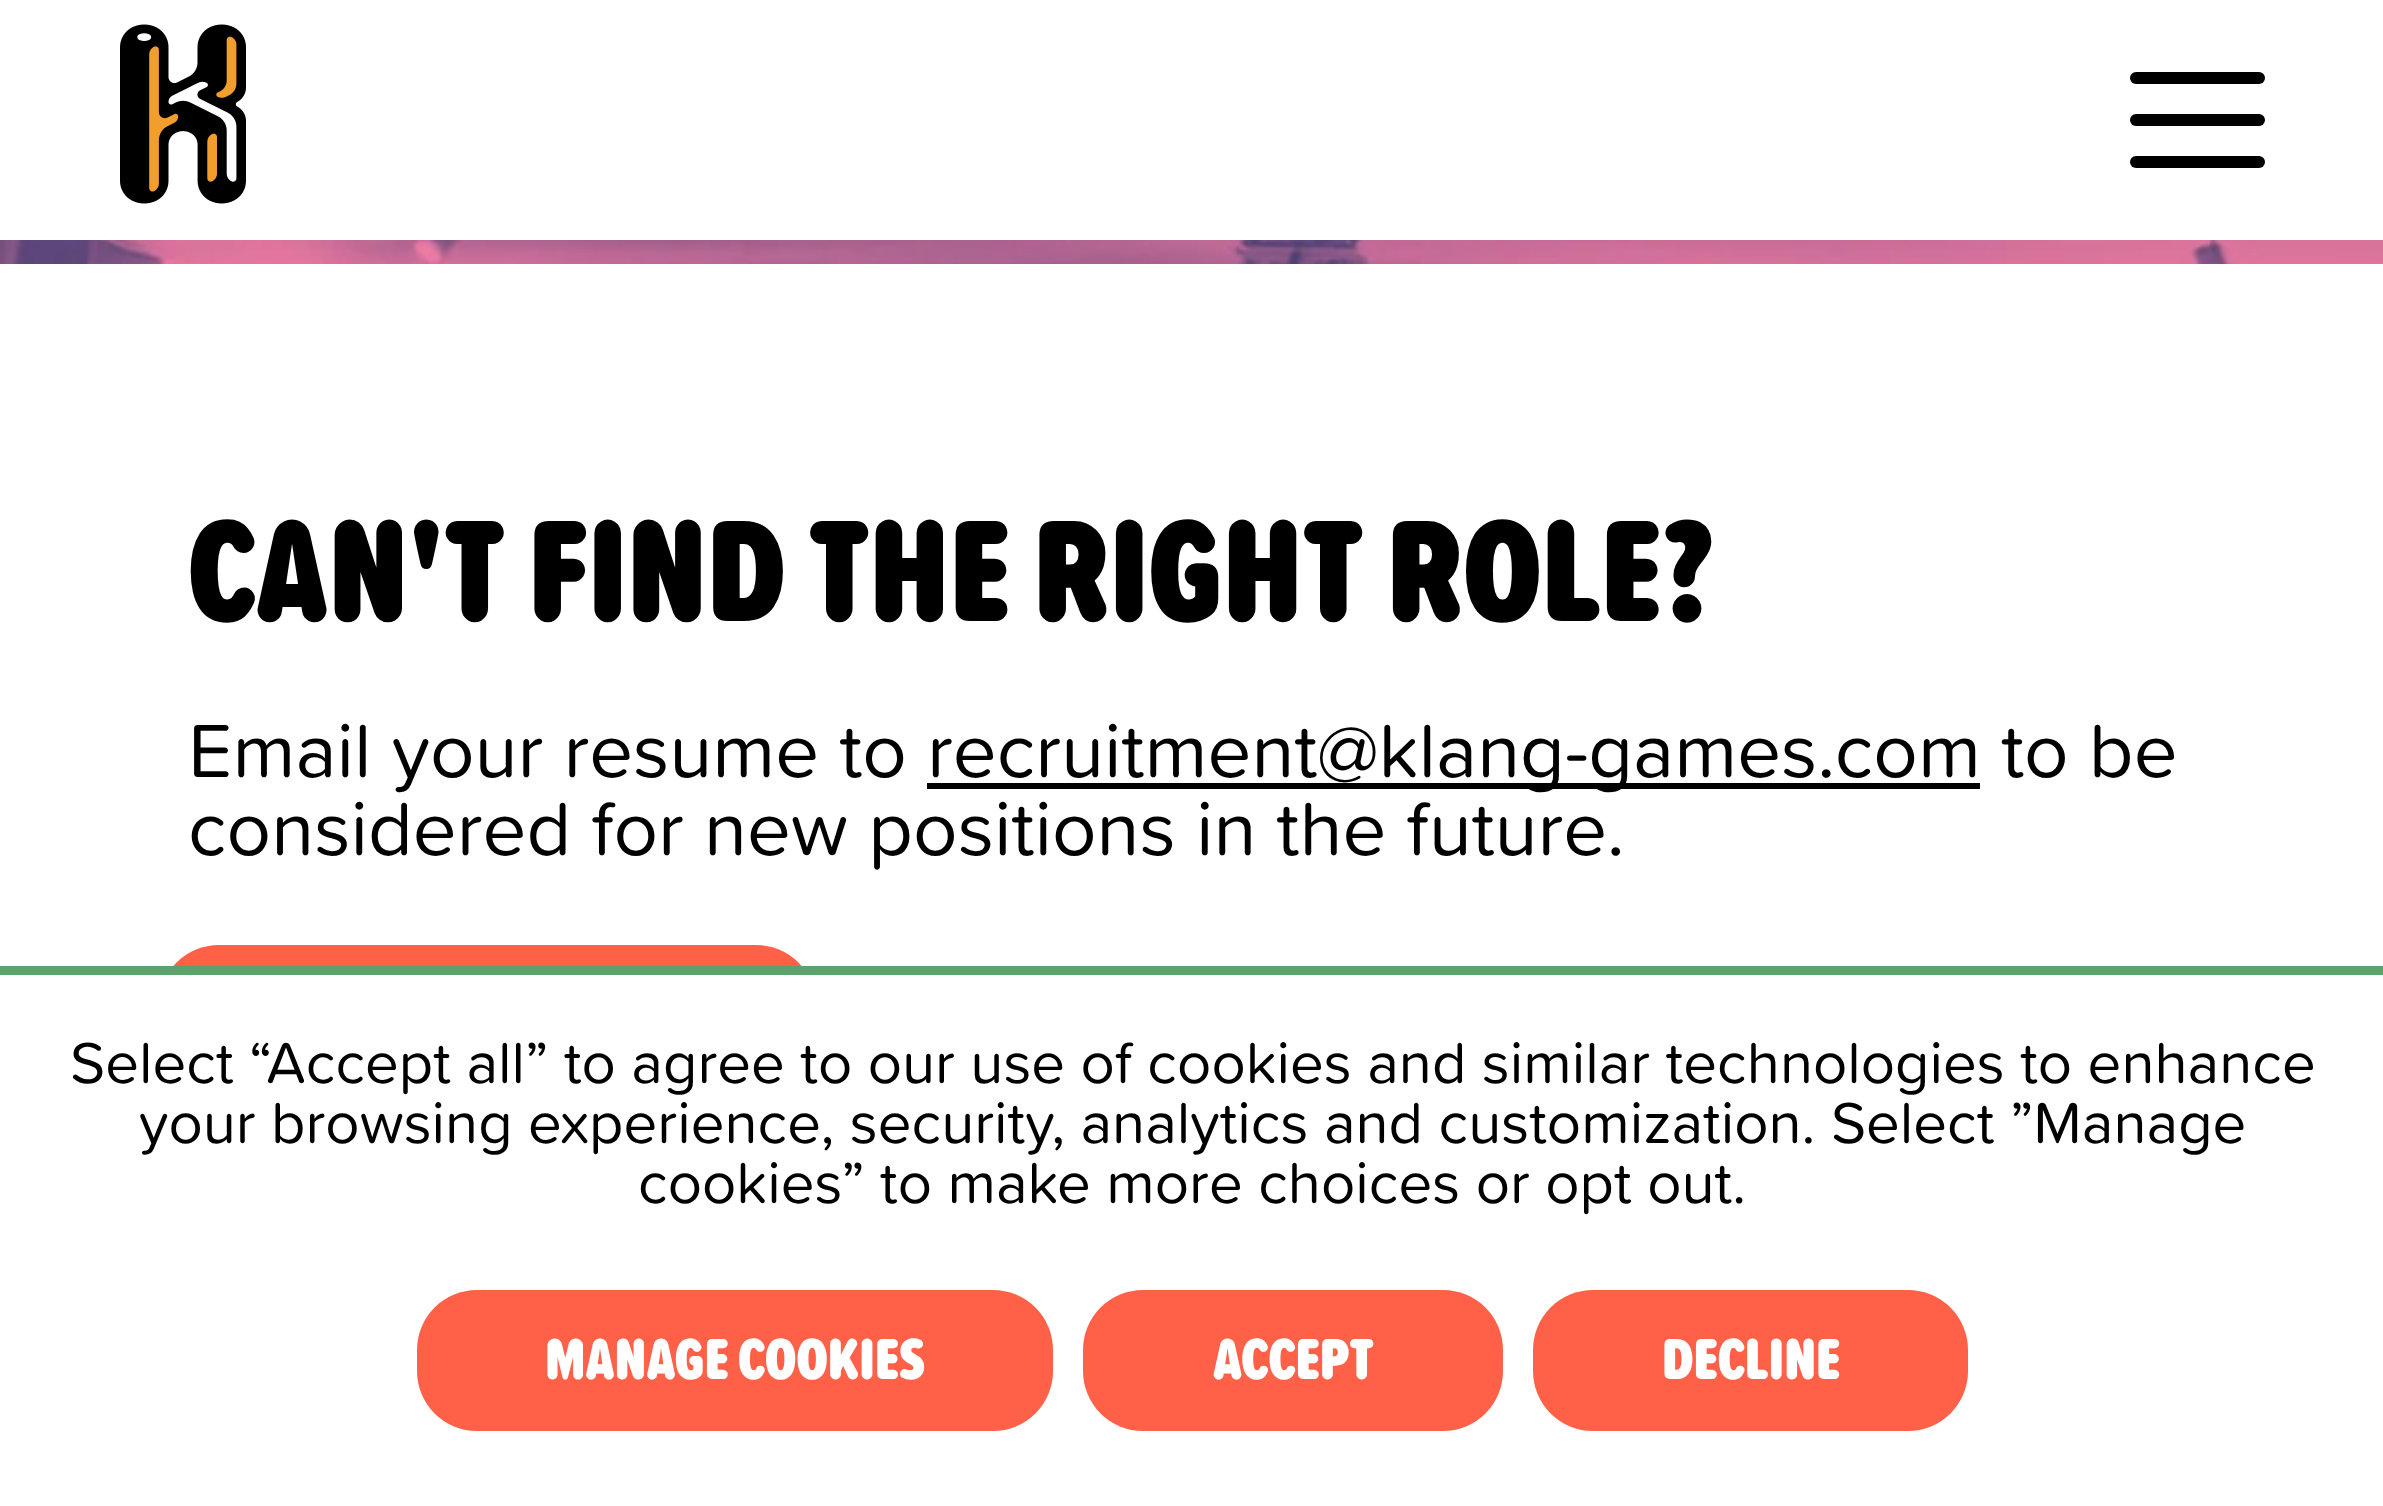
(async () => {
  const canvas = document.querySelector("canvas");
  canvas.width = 2383;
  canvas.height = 1506;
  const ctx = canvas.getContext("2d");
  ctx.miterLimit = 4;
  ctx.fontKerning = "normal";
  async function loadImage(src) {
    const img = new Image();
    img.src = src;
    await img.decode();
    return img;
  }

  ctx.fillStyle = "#ffffff";
  ctx.fillRect(0, 0, 2383, 1506);
  ctx.drawImage(await loadImage("img/1.png"), 120, 24, 126, 180);
  ctx.fillStyle = "#000000";
  ctx.beginPath();
  ctx.roundRect(2130, 72, 135, 12, 6);
  ctx.fill();
  ctx.beginPath();
  ctx.roundRect(2130, 114, 135, 12, 6);
  ctx.fill();
  ctx.beginPath();
  ctx.roundRect(2130, 156, 135, 12, 6);
  ctx.fill();
  ctx.drawImage(await loadImage("img/2.png"), 0, 240, 2383, 24);
  ctx.fillRect(927, 783, 1053, 6);
  ctx.fillStyle = "#fe6148";
  ctx.beginPath();
  ctx.roundRect(159, 945, 657, 141, 60);
  ctx.fill();
  ctx.fillStyle = "#ffffff";
  ctx.fillRect(159, 975, 657, 111);
  ctx.fillStyle = "#5ca26b";
  ctx.fillRect(0, 966, 2383, 9);
  ctx.fillStyle = "#fe6148";
  ctx.beginPath();
  ctx.roundRect(417, 1290, 636, 141, 60);
  ctx.fill();
  ctx.beginPath();
  ctx.roundRect(1083, 1290, 420, 141, 60);
  ctx.fill();
  ctx.beginPath();
  ctx.roundRect(1533, 1290, 435, 141, 60);
  ctx.fill();
  ctx.font = "900 150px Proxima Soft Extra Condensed";
  ctx.fillStyle = "#000000";
  ctx.fillText("CAN'T FIND THE RIGHT ROLE?", 188, 621);
  ctx.font = "78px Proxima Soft";
  for (const [text, x, y] of [
    ["Email your resume to", 188, 777],
    ["recruitment@klang-games.com to be", 927, 777],
    ["considered for new positions in the future.", 188, 855],
  ]) {
    ctx.fillText(text, x, y);
  }
  ctx.font = "60px Proxima Soft";
  for (const [text, x, y] of [
    ["Select “Accept all” to agree to our use of cookies and similar technologies to enhance", 70, 1083],
    ["your browsing experience, security, analytics and customization. Select ”Manage", 139, 1143],
    ["cookies” to make more choices or opt out.", 638, 1203],
  ]) {
    ctx.fillText(text, x, y);
  }
  ctx.font = "900 60px Proxima Soft Extra Condensed";
  ctx.fillStyle = "#ffffff";
  for (const [text, x, y] of [
    ["MANAGE COOKIES", 545, 1379],
    ["ACCEPT", 1213, 1379],
    ["DECLINE", 1662, 1379],
  ]) {
    ctx.fillText(text, x, y);
  }
})();
